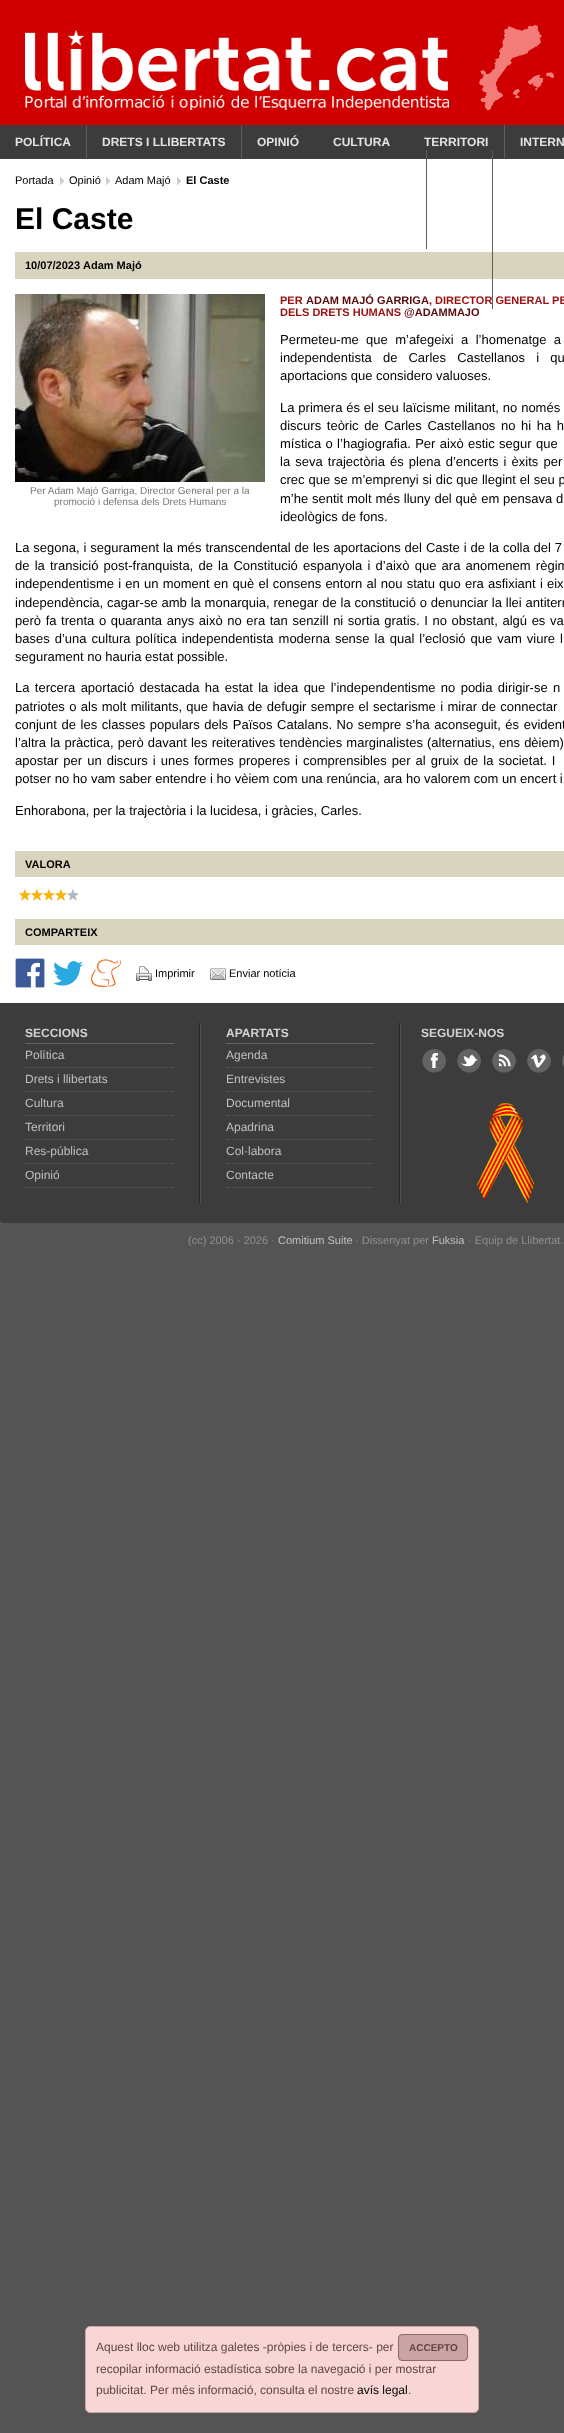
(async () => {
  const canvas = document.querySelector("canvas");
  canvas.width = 564;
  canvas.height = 2433;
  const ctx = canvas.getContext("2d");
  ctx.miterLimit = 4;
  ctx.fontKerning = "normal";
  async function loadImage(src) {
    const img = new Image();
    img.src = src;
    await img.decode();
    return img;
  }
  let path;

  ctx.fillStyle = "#545454";
  ctx.fillRect(0, 0, 564, 2433);
  ctx.fillStyle = "#d00000";
  ctx.fillRect(0, 0, 564, 125);
  ctx.drawImage(await loadImage("img/1.png"), 479, 25, 75, 85);
  ctx.drawImage(await loadImage("img/2.png"), 25, 30, 424, 80);
  for (const [x, y, w, h, color] of [
    [0, 125, 564, 34, "#3c3c3c"],
    [86, 125, 1, 34, "#5d5d5d"],
    [241, 125, 1, 34, "#5d5d5d"],
    [0, 159, 564, 844, "#ffffff"],
    [426, 150, 1, 99, "#5d5d5d"],
    [504, 125, 1, 34, "#5d5d5d"],
  ]) {
    ctx.fillStyle = color;
    ctx.fillRect(x, y, w, h);
  }
  ctx.fillStyle = "#f8d6d6";
  ctx.beginPath();
  ctx.roundRect(85.5, 2326.5, 393, 86, 4.5);
  ctx.fill();
  ctx.strokeStyle = "#caa4a4";
  ctx.stroke();
  ctx.fillStyle = "#caa4a4";
  ctx.beginPath();
  ctx.roundRect(398.5, 2334.5, 69, 26, 3.5);
  ctx.fill();
  ctx.strokeStyle = "#916767";
  ctx.stroke();
  ctx.drawImage(await loadImage("img/3.png"), 60, 177, 4, 8);
  ctx.drawImage(await loadImage("img/3.png"), 106, 177, 4, 8);
  ctx.drawImage(await loadImage("img/3.png"), 177, 177, 4, 8);
  ctx.fillStyle = "#d9d4bd";
  ctx.fillRect(15, 252, 549, 27);
  ctx.drawImage(await loadImage("img/4.png"), 15, 294, 250, 188);
  ctx.fillRect(15, 851, 549, 26);
  ctx.drawImage(await loadImage("img/5.png"), 67, 889, 12, 12);
  ctx.drawImage(await loadImage("img/6.png"), 19, 889, 48, 12);
  ctx.fillRect(15, 919, 549, 26);
  ctx.drawImage(await loadImage("img/7.png"), 15, 958, 30, 30);
  ctx.drawImage(await loadImage("img/8.png"), 53, 961, 30, 25);
  ctx.drawImage(await loadImage("img/9.png"), 91, 959, 30, 28);
  ctx.drawImage(await loadImage("img/10.png"), 136, 966, 16, 15);
  ctx.drawImage(await loadImage("img/11.png"), 210, 968, 16, 12);
  ctx.fillStyle = "#3c3c3c";
  path = new Path2D("M0 1003H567V1220C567 1221.5 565.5 1223 564 1223H3C1.5 1223 0 1221.5 0 1220Z");
  ctx.fill(path);
  ctx.fillStyle = "#252525";
  ctx.fillRect(199, 1023, 1, 180);
  ctx.fillStyle = "#636363";
  ctx.fillRect(25, 1043, 149, 1);
  path = new Path2D("M25 1067.5H174");
  ctx.strokeStyle = "#636363";
  ctx.setLineDash([1, 1]);
  ctx.stroke(path);
  path = new Path2D("M25 1091.5H174");
  ctx.stroke(path);
  path = new Path2D("M25 1115.5H174");
  ctx.stroke(path);
  path = new Path2D("M25 1139.5H174");
  ctx.stroke(path);
  path = new Path2D("M25 1163.5H174");
  ctx.stroke(path);
  path = new Path2D("M25 1187.5H174");
  ctx.stroke(path);
  for (const [x, y, w, h, color] of [
    [399, 1023, 1, 180, "#252525"],
    [200, 1023, 1, 180, "#525252"],
    [226, 1043, 148, 1, "#636363"],
  ]) {
    ctx.fillStyle = color;
    ctx.fillRect(x, y, w, h);
  }
  path = new Path2D("M226 1067.5H374");
  ctx.stroke(path);
  path = new Path2D("M226 1091.5H374");
  ctx.stroke(path);
  path = new Path2D("M226 1115.5H374");
  ctx.stroke(path);
  path = new Path2D("M226 1139.5H374");
  ctx.stroke(path);
  path = new Path2D("M226 1163.5H374");
  ctx.stroke(path);
  path = new Path2D("M226 1187.5H374");
  ctx.stroke(path);
  ctx.drawImage(await loadImage("img/12.png"), 477, 1103, 57, 100);
  ctx.fillStyle = "#525252";
  ctx.fillRect(400, 1023, 1, 180);
  ctx.drawImage(await loadImage("img/13.png"), 422, 1049, 24, 24);
  ctx.drawImage(await loadImage("img/14.png"), 457, 1049, 24, 24);
  ctx.drawImage(await loadImage("img/15.png"), 492, 1049, 24, 24);
  ctx.drawImage(await loadImage("img/16.png"), 527, 1049, 24, 24);
  ctx.drawImage(await loadImage("img/17.png"), 562, 1055, 2, 12);
  ctx.font = "bold 12px Liberation Sans";
  ctx.fillStyle = "#e3e3e3";
  for (const [text, x, y] of [
    ["POLÍTICA", 15, 146],
    ["DRETS I LLIBERTATS", 102, 146],
    ["OPINIÓ", 257, 146],
    ["CULTURA", 333, 146],
    ["TERRITORI", 424, 146],
    ["INTERN", 520, 146],
  ]) {
    ctx.fillText(text, x, y);
  }
  ctx.font = "12px Liberation Sans";
  ctx.fillStyle = "#644242";
  ctx.fillText("Aquest lloc web utilitza galetes -pròpies i de tercers- per", 96, 2351);
  ctx.font = "bold 10px Liberation Sans";
  ctx.fillText("ACCEPTO", 409, 2351);
  ctx.font = "12px Liberation Sans";
  ctx.fillText("recopilar informació estadística sobre la navegació i per mostrar", 96, 2373);
  ctx.fillText("publicitat. Per més informació, consulta el nostre", 96, 2394);
  ctx.fillStyle = "#000000";
  ctx.fillText("avís legal", 357, 2394);
  ctx.fillStyle = "#644242";
  ctx.fillText(".", 408, 2394);
  ctx.font = "11px Liberation Sans";
  ctx.fillStyle = "#000000";
  for (const [text, x, y] of [
    ["Portada", 15, 184],
    ["Opinió", 69, 184],
    ["Adam Majó", 115, 184],
  ]) {
    ctx.fillText(text, x, y);
  }
  ctx.font = "bold 11px Liberation Sans";
  ctx.fillText("El Caste", 186, 184);
  ctx.font = "bold 30px Liberation Sans";
  ctx.fillText("El Caste", 15, 229);
  ctx.font = "bold 11px Liberation Sans";
  ctx.fillText("10/07/2023", 25, 269);
  ctx.fillText("Adam Majó", 83, 269);
  ctx.fillStyle = "#9d0e0e";
  ctx.fillText("PER", 280, 304);
  ctx.fillStyle = "#5a0a0a";
  ctx.fillText("ADAM MAJÓ GARRIGA", 306, 304);
  ctx.fillStyle = "#9d0e0e";
  ctx.fillText(", DIRECTOR GENERAL PE", 429, 304);
  ctx.fillStyle = "#5d5d5d";
  ctx.fillRect(492, 150, 1, 159);
  ctx.fillStyle = "#9d0e0e";
  ctx.fillText("DELS DRETS HUMANS", 280, 316);
  ctx.fillStyle = "#5a0a0a";
  ctx.fillText("@ADAMMAJO", 404, 316);
  ctx.wordSpacing = "3.75px";
  ctx.font = "13px Liberation Sans";
  ctx.fillStyle = "#000000";
  ctx.fillText("Permeteu-me que m’afegeixi a l’homenatge a", 280, 344);
  ctx.wordSpacing = "7.5px";
  ctx.fillText("independentista de Carles Castellanos i qu", 280, 362);
  ctx.wordSpacing = "0px";
  ctx.fillText("aportacions que considero valuoses.", 280, 380);
  ctx.wordSpacing = "0.25px";
  ctx.fillText("La primera és el seu laïcisme militant, no només", 280, 412);
  ctx.wordSpacing = "2px";
  ctx.fillText("discurs teòric de Carles Castellanos no hi ha h", 280, 430);
  ctx.wordSpacing = "0.75px";
  ctx.fillText("mística o l’hagiografia. Per això estic segur que", 280, 448);
  ctx.wordSpacing = "1.5px";
  ctx.fillText("la seva trajectòria és plena d’encerts i èxits per", 280, 466);
  ctx.wordSpacing = "0.25px";
  ctx.fillText("crec que se m’emprenyi si dic que llegint el seu p", 280, 484);
  ctx.fillText("m’he sentit molt més lluny del què em pensava d", 280, 503);
  ctx.wordSpacing = "0px";
  ctx.fillText("ideològics de fons.", 280, 521);
  ctx.wordSpacing = "0.3px";
  ctx.fillText("La segona, i segurament la més transcendental de les aportacions del Caste i de la colla del 7", 15, 552);
  ctx.wordSpacing = "1.6px";
  ctx.fillText("de la transició post-franquista, de la Constitució espanyola i d’això que ara anomenem règim", 15, 570);
  ctx.wordSpacing = "0.6px";
  ctx.fillText("independentisme i en un moment en què el consens entorn al nou statu quo era asfixiant i eix", 15, 588);
  ctx.wordSpacing = "0.25px";
  ctx.fillText("independència, cagar-se amb la monarquia, renegar de la constitució o denunciar la llei antiterr", 15, 607);
  ctx.wordSpacing = "1px";
  ctx.fillText("però fa trenta o quaranta anys això no era tan senzill ni sortia gratis. I no obstant, algú es va", 15, 625);
  ctx.wordSpacing = "1.4px";
  ctx.fillText("bases d’una cultura política independentista moderna sense la qual l’eclosió que vam viure l", 15, 643);
  ctx.wordSpacing = "0px";
  ctx.fillText("segurament no hauria estat possible.", 15, 661);
  ctx.wordSpacing = "1.75px";
  ctx.fillText("La tercera aportació destacada ha estat la idea que l’independentisme no podia dirigir-se n", 15, 692);
  ctx.wordSpacing = "0.75px";
  ctx.fillText("patriotes o als molt militants, que havia de defugir sempre el sectarisme i mirar de connectar", 15, 711);
  ctx.wordSpacing = "1px";
  ctx.fillText("conjunt de les classes populars dels Països Catalans. No sempre s’ha aconseguit, és evident", 15, 729);
  ctx.wordSpacing = "0.5px";
  ctx.fillText("l’altra la pràctica, però davant les reiteratives tendències marginalistes (alternatius, ens dèiem)", 15, 747);
  ctx.wordSpacing = "1.4px";
  ctx.fillText("apostar per un discurs i unes formes properes i comprensibles per al gruix de la societat. I", 15, 765);
  ctx.wordSpacing = "0px";
  ctx.fillText("potser no ho vam saber entendre i ho vèiem com una renúncia, ara ho valorem com un encert i", 15, 783);
  ctx.fillText("Enhorabona, per la trajectòria i la lucidesa, i gràcies, Carles.", 15, 815);
  ctx.font = "10px Liberation Sans";
  ctx.fillStyle = "#777777";
  ctx.fillText("Per Adam Majó Garriga, Director General per a la", 30, 494);
  ctx.fillText("promoció i defensa dels Drets Humans", 54, 505);
  ctx.font = "bold 11px Liberation Sans";
  ctx.fillStyle = "#000000";
  ctx.fillText("VALORA", 25, 868);
  ctx.fillText("COMPARTEIX", 25, 936);
  ctx.font = "11px Liberation Sans";
  ctx.fillText("Imprimir", 155, 977);
  ctx.fillText("Enviar notícia", 229, 977);
  ctx.font = "bold 12px Liberation Sans";
  ctx.fillStyle = "#d3d3d3";
  ctx.fillText("SECCIONS", 25, 1037);
  ctx.font = "12px Liberation Sans";
  ctx.fillStyle = "#c0c0c0";
  for (const [text, x, y] of [
    ["Política", 25, 1059],
    ["Drets i llibertats", 25, 1083],
    ["Cultura", 25, 1107],
    ["Territori", 25, 1131],
    ["Res-pública", 25, 1155],
    ["Opinió", 25, 1179],
  ]) {
    ctx.fillText(text, x, y);
  }
  ctx.font = "bold 12px Liberation Sans";
  ctx.fillStyle = "#d3d3d3";
  ctx.fillText("APARTATS", 226, 1037);
  ctx.font = "12px Liberation Sans";
  ctx.fillStyle = "#c0c0c0";
  for (const [text, x, y] of [
    ["Agenda", 226, 1059],
    ["Entrevistes", 226, 1083],
    ["Documental", 226, 1107],
    ["Apadrina", 226, 1131],
    ["Col·labora", 226, 1155],
    ["Contacte", 226, 1179],
  ]) {
    ctx.fillText(text, x, y);
  }
  ctx.font = "bold 12px Liberation Sans";
  ctx.fillStyle = "#d3d3d3";
  ctx.fillText("SEGUEIX-NOS", 421, 1037);
  ctx.font = "11px Liberation Sans";
  ctx.fillStyle = "#8f8f8f";
  ctx.fillText("(cc) 2006 - 2026 ·", 188, 1244);
  ctx.fillStyle = "#c0c0c0";
  ctx.fillText("Comitium Suite", 278, 1244);
  ctx.fillStyle = "#8f8f8f";
  ctx.fillText("· Dissenyat per", 355, 1244);
  ctx.fillStyle = "#c0c0c0";
  ctx.fillText("Fuksia", 432, 1244);
  ctx.fillStyle = "#8f8f8f";
  ctx.fillText("· Equip de Llibertat.", 468, 1244);
})();
